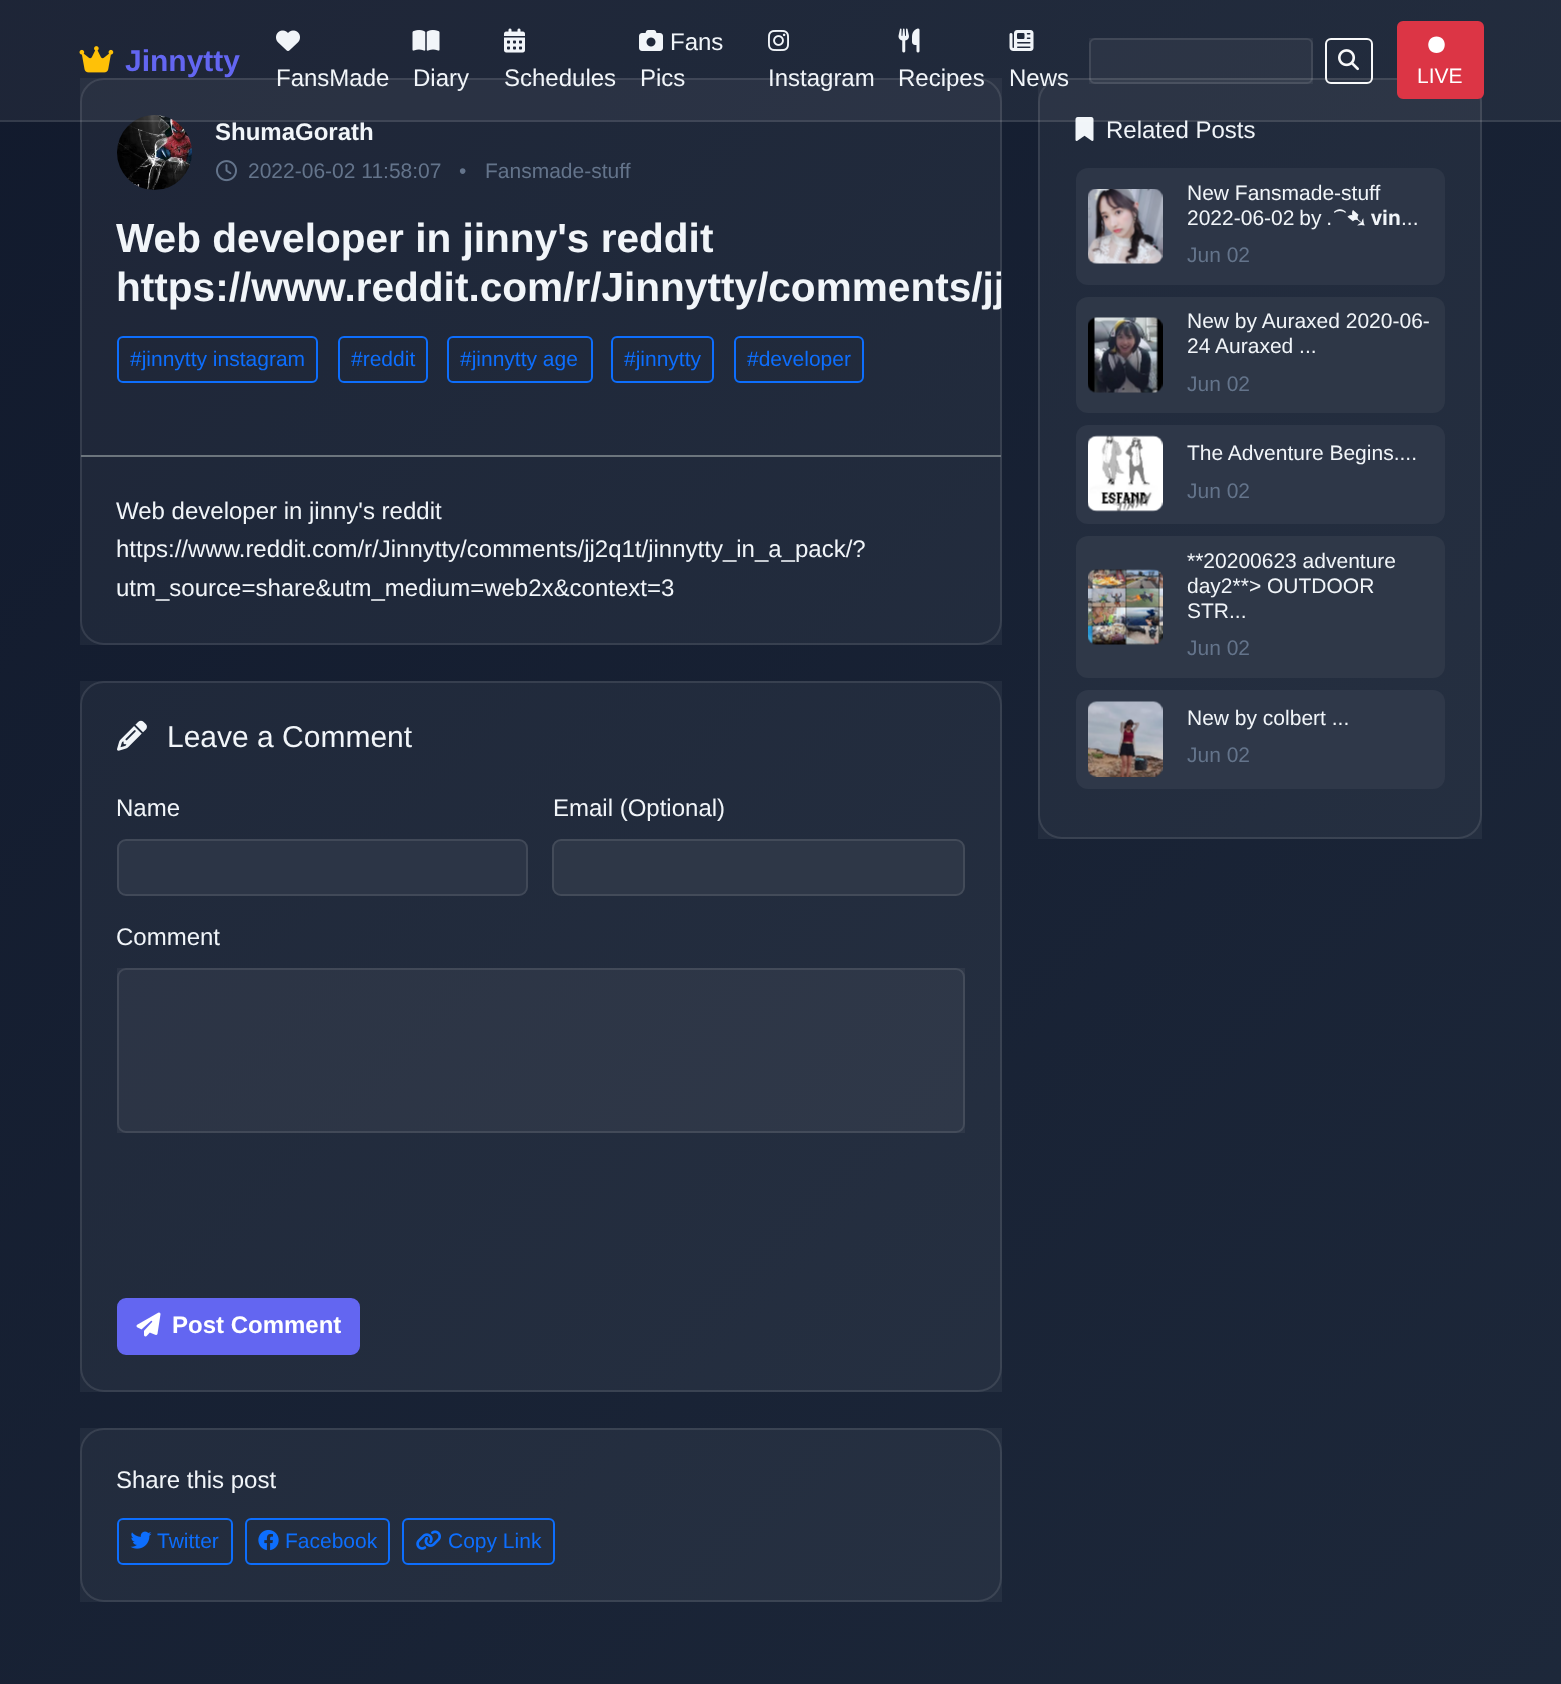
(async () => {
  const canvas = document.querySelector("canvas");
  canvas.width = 1561;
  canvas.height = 1684;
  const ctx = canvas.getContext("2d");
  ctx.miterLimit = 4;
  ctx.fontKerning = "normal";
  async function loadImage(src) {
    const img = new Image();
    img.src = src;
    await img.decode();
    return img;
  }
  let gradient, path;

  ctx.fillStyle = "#ffffff";
  ctx.fillRect(0, 0, 1561, 1684);
  gradient = ctx.createLinearGradient(-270, -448, 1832, 1653);
  gradient.addColorStop(0, "#0f172a");
  gradient.addColorStop(1, "#1e293b");
  ctx.fillStyle = gradient;
  ctx.fillRect(0, 0, 1561, 1684);
  ctx.fillStyle = "rgba(255, 255, 255, 0.05)";
  ctx.fillRect(80, 78, 922, 567);
  ctx.beginPath();
  ctx.roundRect(81, 79, 920, 565, 23);
  ctx.strokeStyle = "rgba(255, 255, 255, 0.1)";
  ctx.lineWidth = 2;
  ctx.stroke();
  ctx.drawImage(await loadImage("img/10.png"), 117, 115, 75, 75);
  ctx.fillRect(1038, 78, 444, 761);
  ctx.beginPath();
  ctx.roundRect(1039, 79, 442, 759, 23);
  ctx.stroke();
  ctx.drawImage(await loadImage("img/17.png"), 1075, 117, 19, 24);
  ctx.fillRect(0, 0, 1561, 122);
  ctx.fillStyle = "rgba(255, 255, 255, 0.1)";
  ctx.fillRect(0, 120, 1561, 2);
  ctx.drawImage(await loadImage("img/1.png"), 79, 46, 35, 27);
  ctx.drawImage(await loadImage("img/2.png"), 276, 30, 24, 21);
  ctx.drawImage(await loadImage("img/3.png"), 412, 30, 28, 21);
  ctx.drawImage(await loadImage("img/4.png"), 504, 28, 21, 25);
  ctx.drawImage(await loadImage("img/5.png"), 639, 30, 24, 21);
  ctx.drawImage(await loadImage("img/6.png"), 768, 30, 21, 21);
  ctx.drawImage(await loadImage("img/7.png"), 898, 28, 22, 25);
  ctx.drawImage(await loadImage("img/8.png"), 1009, 30, 25, 21);
  ctx.fillStyle = "rgba(255, 255, 255, 0.05)";
  ctx.fillRect(1089, 38, 224, 46);
  ctx.beginPath();
  ctx.roundRect(1090, 39, 222, 44, 5);
  ctx.stroke();
  ctx.beginPath();
  ctx.roundRect(1326, 39, 46, 44, 5);
  ctx.strokeStyle = "#f8f9fa";
  ctx.stroke();
  ctx.drawImage(await loadImage("img/9.png"), 1338, 49, 21, 22);
  ctx.fillStyle = "#dc3545";
  ctx.beginPath();
  ctx.roundRect(1398, 22, 85, 76, 5);
  ctx.fill();
  ctx.strokeStyle = "#dc3545";
  ctx.stroke();
  ctx.fillStyle = "#ffffff";
  path = new Path2D("M1436.5 53C1447.5 53 1447.5 36.5 1436.5 36.5C1425.5 36.5 1425.5 53 1436.5 53Z");
  ctx.fill(path);
  ctx.fillStyle = "#6c757d";
  ctx.fillRect(81, 455, 920, 2);
  ctx.drawImage(await loadImage("img/11.png"), 216, 160, 21, 22);
  ctx.beginPath();
  ctx.roundRect(118, 337, 199, 45, 5);
  ctx.strokeStyle = "#0d6efd";
  ctx.stroke();
  ctx.beginPath();
  ctx.roundRect(339, 337, 88, 45, 5);
  ctx.stroke();
  ctx.beginPath();
  ctx.roundRect(448, 337, 144, 45, 5);
  ctx.stroke();
  ctx.beginPath();
  ctx.roundRect(612, 337, 101, 45, 5);
  ctx.stroke();
  ctx.beginPath();
  ctx.roundRect(735, 337, 128, 45, 5);
  ctx.stroke();
  ctx.fillStyle = "rgba(255, 255, 255, 0.05)";
  ctx.fillRect(80, 681, 922, 711);
  ctx.beginPath();
  ctx.roundRect(81, 682, 920, 709, 23);
  ctx.strokeStyle = "rgba(255, 255, 255, 0.1)";
  ctx.stroke();
  ctx.drawImage(await loadImage("img/12.png"), 117, 720, 30, 31);
  ctx.fillStyle = "#2c3546";
  ctx.beginPath();
  ctx.roundRect(117, 839, 411, 57, 9);
  ctx.fill();
  ctx.beginPath();
  ctx.roundRect(118, 840, 409, 55, 8);
  ctx.stroke();
  ctx.fillStyle = "#2e3747";
  ctx.beginPath();
  ctx.roundRect(552, 839, 413, 57, 9);
  ctx.fill();
  ctx.beginPath();
  ctx.roundRect(553, 840, 411, 55, 8);
  ctx.stroke();
  ctx.fillStyle = "rgba(255, 255, 255, 0.05)";
  ctx.fillRect(117, 968, 848, 165);
  ctx.beginPath();
  ctx.roundRect(118, 969, 846, 163, 8);
  ctx.stroke();
  ctx.fillStyle = "#6366f1";
  ctx.beginPath();
  ctx.roundRect(118, 1299, 241, 55, 8);
  ctx.fill();
  ctx.strokeStyle = "#6366f1";
  ctx.stroke();
  ctx.drawImage(await loadImage("img/13.png"), 136, 1312, 25, 25);
  ctx.fillStyle = "rgba(255, 255, 255, 0.05)";
  ctx.fillRect(80, 1428, 922, 174);
  ctx.beginPath();
  ctx.roundRect(81, 1429, 920, 172, 23);
  ctx.strokeStyle = "rgba(255, 255, 255, 0.1)";
  ctx.stroke();
  ctx.beginPath();
  ctx.roundRect(118, 1519, 114, 45, 5);
  ctx.strokeStyle = "#0d6efd";
  ctx.stroke();
  ctx.drawImage(await loadImage("img/14.png"), 130, 1531, 22, 18);
  ctx.beginPath();
  ctx.roundRect(246, 1519, 143, 45, 5);
  ctx.stroke();
  ctx.drawImage(await loadImage("img/15.png"), 258, 1529, 21, 22);
  ctx.beginPath();
  ctx.roundRect(403, 1519, 151, 45, 5);
  ctx.stroke();
  ctx.drawImage(await loadImage("img/16.png"), 416, 1530, 25, 20);
  ctx.fillStyle = "#2d3647";
  ctx.beginPath();
  ctx.roundRect(1076, 168, 369, 117, 12);
  ctx.fill();
  ctx.drawImage(await loadImage("img/18.png"), 1088, 189, 75, 75);
  ctx.fillStyle = "#2e3747";
  ctx.beginPath();
  ctx.roundRect(1076, 297, 369, 116, 12);
  ctx.fill();
  ctx.drawImage(await loadImage("img/19.png"), 1088, 317, 75, 76);
  ctx.fillStyle = "#2e3748";
  ctx.beginPath();
  ctx.roundRect(1076, 425, 369, 99, 12);
  ctx.fill();
  ctx.drawImage(await loadImage("img/20.png"), 1088, 435, 75, 77);
  ctx.fillStyle = "#2f3848";
  ctx.beginPath();
  ctx.roundRect(1076, 536, 369, 142, 12);
  ctx.fill();
  ctx.drawImage(await loadImage("img/21.png"), 1088, 569, 75, 76);
  ctx.fillStyle = "#2f3849";
  ctx.beginPath();
  ctx.roundRect(1076, 690, 369, 99, 12);
  ctx.fill();
  ctx.drawImage(await loadImage("img/22.png"), 1088, 701, 75, 76);
  ctx.font = "bold 30px Liberation Sans";
  ctx.fillStyle = "#6366f1";
  ctx.fillText("Jinnytty", 125, 71);
  ctx.font = "24px Liberation Sans";
  ctx.fillStyle = "#f1f5f9";
  for (const [text, x, y] of [
    ["FansMade", 276, 86],
    ["Diary", 413, 86],
    ["Schedules", 504, 86],
    ["Fans", 670, 50],
    ["Pics", 640, 86],
    ["Instagram", 768, 86],
    ["Recipes", 898, 86],
    ["News", 1009, 86],
  ]) {
    ctx.fillText(text, x, y);
  }
  ctx.font = "21px Liberation Sans";
  ctx.fillStyle = "#ffffff";
  ctx.fillText("LIVE", 1417, 83);
  ctx.font = "bold 24px Liberation Sans";
  ctx.fillStyle = "#f1f5f9";
  ctx.fillText("ShumaGorath", 215, 140);
  ctx.font = "21px Liberation Sans";
  ctx.fillStyle = "#64748b";
  for (const [text, x, y] of [
    ["2022-06-02 11:58:07", 248, 178],
    ["•", 459, 178],
    ["Fansmade-stuff", 485, 178],
  ]) {
    ctx.fillText(text, x, y);
  }
  ctx.font = "bold 40.6px Liberation Sans";
  ctx.fillStyle = "#f1f5f9";
  ctx.fillText("Web developer in jinny's reddit", 116, 252);
  ctx.save();
  ctx.beginPath();
  ctx.roundRect(81, 80, 920, 564, 23);
  ctx.clip();
  ctx.fillText("https://www.reddit.com/r/Jinnytty/comments/jj", 116, 301);
  ctx.restore();
  ctx.font = "21px Liberation Sans";
  ctx.fillStyle = "#0d6efd";
  for (const [text, x, y] of [
    ["#jinnytty instagram", 130, 366],
    ["#reddit", 351, 366],
    ["#jinnytty age", 460, 366],
    ["#jinnytty", 624, 366],
    ["#developer", 747, 366],
  ]) {
    ctx.fillText(text, x, y);
  }
  ctx.font = "24px Liberation Sans";
  ctx.fillStyle = "#f1f5f9";
  for (const [text, x, y] of [
    ["Web developer in jinny's reddit", 116, 519],
    ["https://www.reddit.com/r/Jinnytty/comments/jj2q1t/jinnytty_in_a_pack/?", 116, 557],
    ["utm_source=share&utm_medium=web2x&context=3", 116, 596],
  ]) {
    ctx.fillText(text, x, y);
  }
  ctx.font = "30px Liberation Sans";
  ctx.fillText("Leave a Comment", 167, 747);
  ctx.font = "24px Liberation Sans";
  for (const [text, x, y] of [
    ["Name", 116, 816],
    ["Email (Optional)", 553, 816],
    ["Comment", 116, 945],
  ]) {
    ctx.fillText(text, x, y);
  }
  ctx.font = "bold 24px Liberation Sans";
  ctx.fillStyle = "#ffffff";
  ctx.fillText("Post Comment", 172, 1333);
  ctx.font = "24px Liberation Sans";
  ctx.fillStyle = "#f1f5f9";
  ctx.fillText("Share this post", 116, 1488);
  ctx.font = "21px Liberation Sans";
  ctx.fillStyle = "#0d6efd";
  for (const [text, x, y] of [
    ["Twitter", 157, 1548],
    ["Facebook", 285, 1548],
    ["Copy Link", 448, 1548],
  ]) {
    ctx.fillText(text, x, y);
  }
  ctx.font = "24px Liberation Sans";
  ctx.fillStyle = "#f1f5f9";
  ctx.fillText("Related Posts", 1106, 138);
  ctx.font = "21px Liberation Sans";
  ctx.fillText("New Fansmade-stuff", 1187, 200);
  ctx.wordSpacing = "-1px";
  ctx.fillText("2022-06-02 by .", 1187, 225);
  ctx.wordSpacing = "0px";
  ctx.font = "21px FreeSans";
  ctx.fillText("⁀➷ 𝐯𝐢𝐧", 1333, 225);
  ctx.font = "21px Liberation Sans";
  ctx.fillText("...", 1401, 225);
  ctx.fillStyle = "#64748b";
  ctx.fillText("Jun 02", 1187, 262);
  ctx.fillStyle = "#f1f5f9";
  ctx.fillText("New by Auraxed 2020-06-", 1187, 328);
  ctx.fillText("24 Auraxed ...", 1187, 353);
  ctx.fillStyle = "#64748b";
  ctx.fillText("Jun 02", 1187, 391);
  ctx.fillStyle = "#f1f5f9";
  ctx.fillText("The Adventure Begins....", 1187, 460);
  ctx.fillStyle = "#64748b";
  ctx.fillText("Jun 02", 1187, 498);
  ctx.fillStyle = "#f1f5f9";
  for (const [text, x, y] of [
    ["**20200623 adventure", 1187, 568],
    ["day2**> OUTDOOR", 1187, 593],
    ["STR...", 1187, 618],
  ]) {
    ctx.fillText(text, x, y);
  }
  ctx.fillStyle = "#64748b";
  ctx.fillText("Jun 02", 1187, 655);
  ctx.fillStyle = "#f1f5f9";
  ctx.fillText("New by colbert ...", 1187, 725);
  ctx.fillStyle = "#64748b";
  ctx.fillText("Jun 02", 1187, 762);
})();
